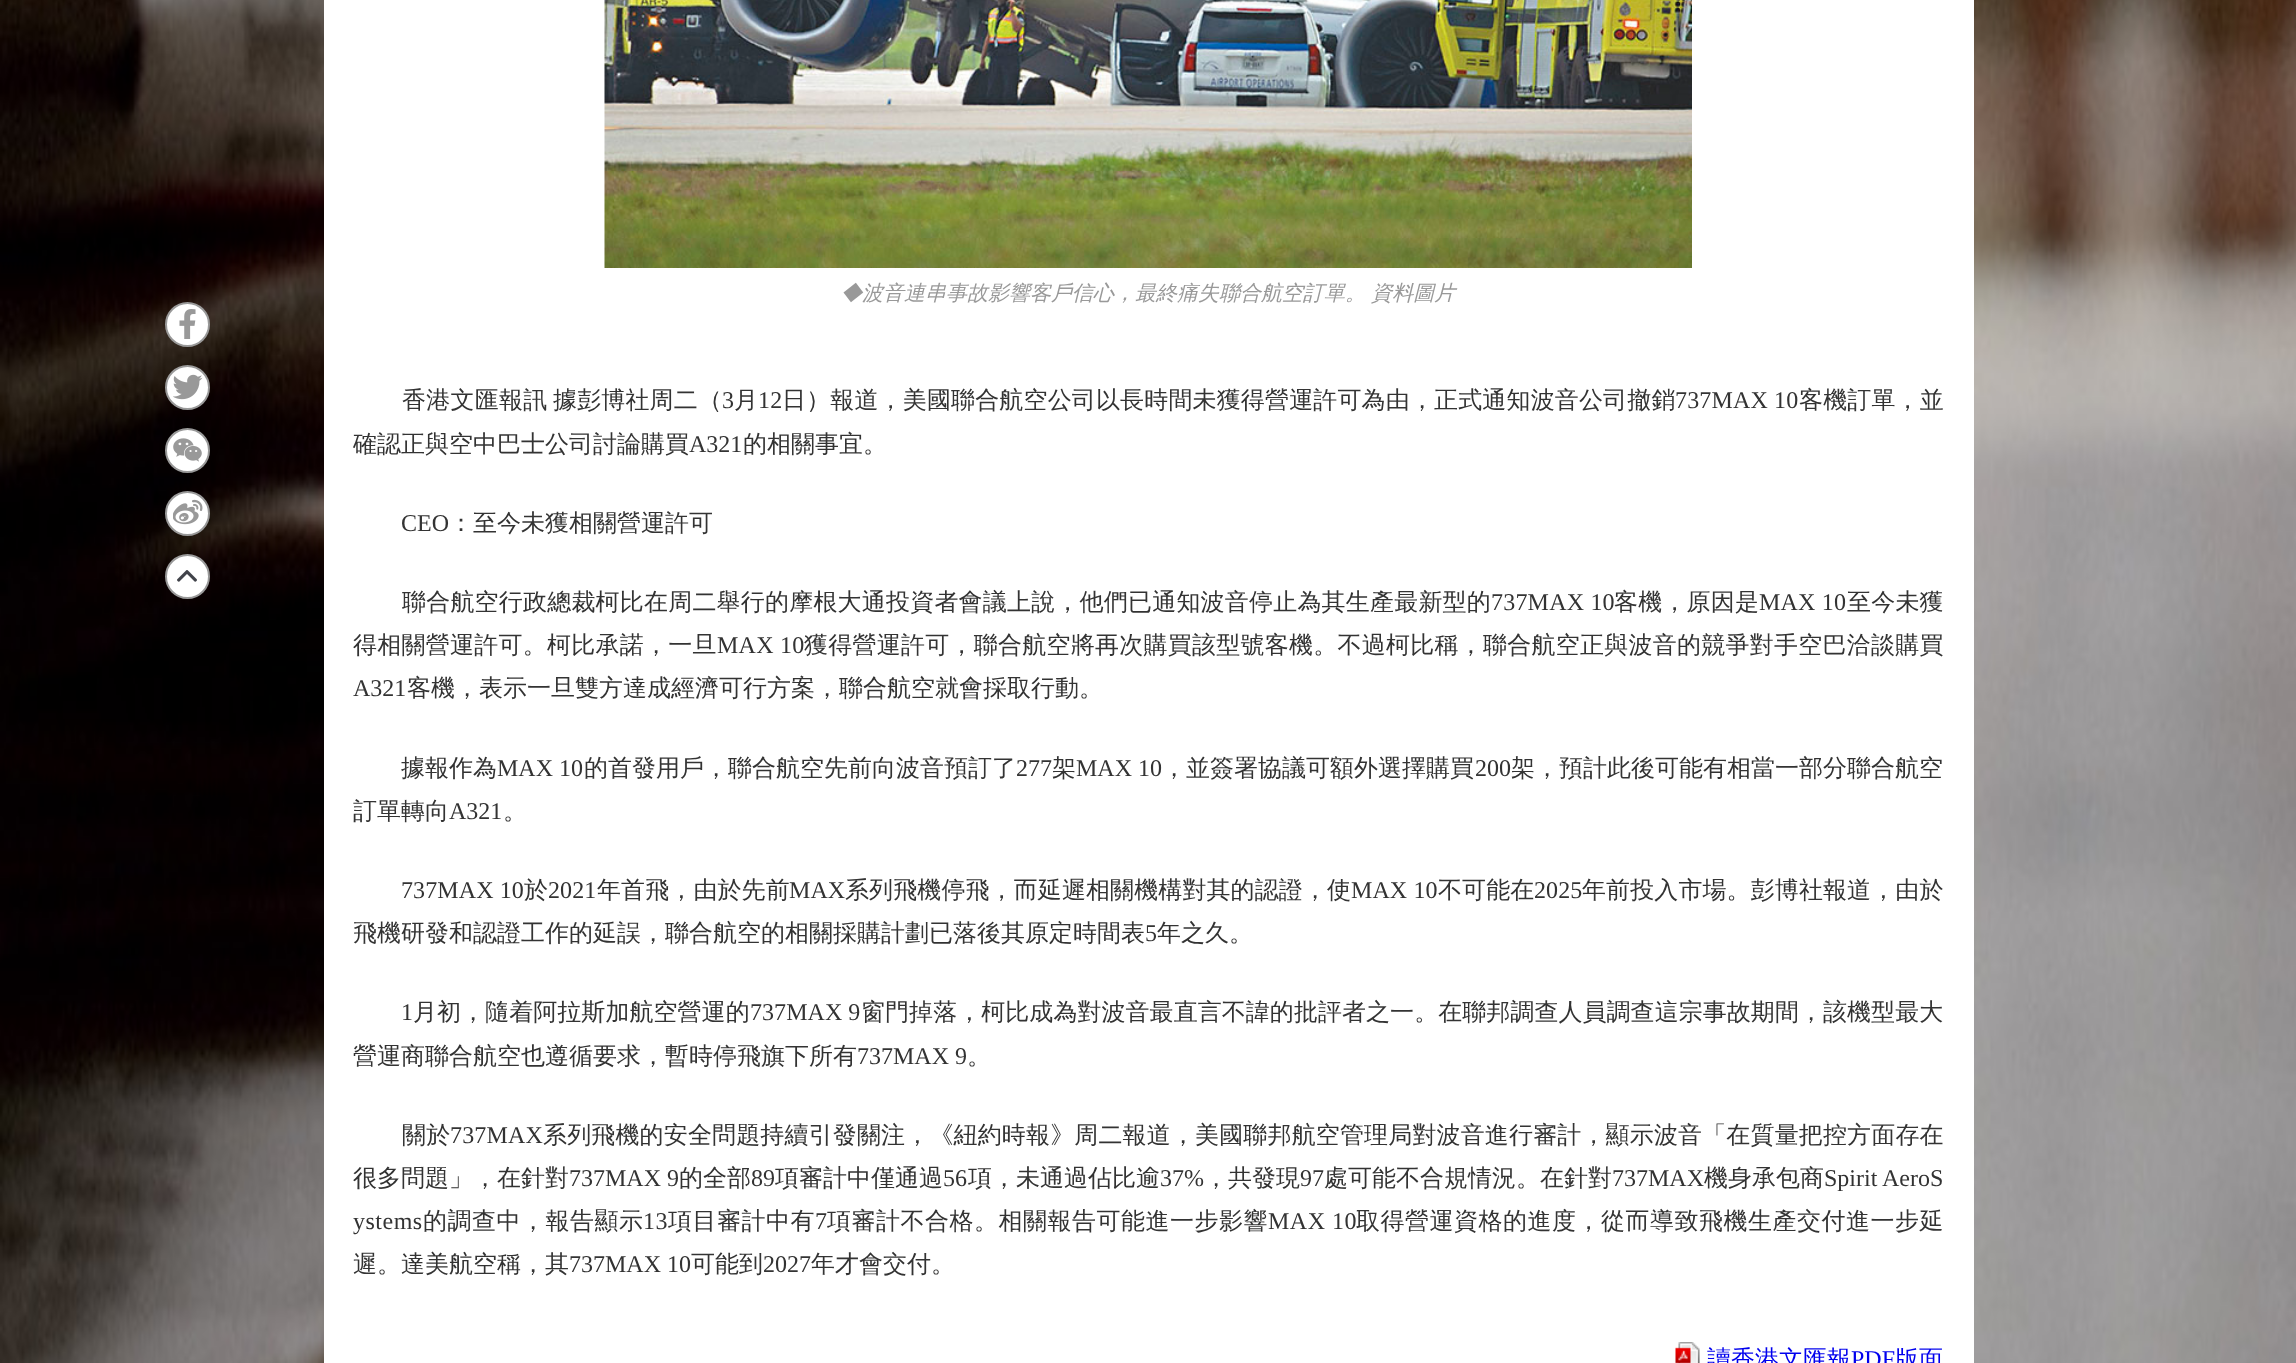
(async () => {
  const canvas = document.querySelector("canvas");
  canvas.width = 2296;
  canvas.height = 1363;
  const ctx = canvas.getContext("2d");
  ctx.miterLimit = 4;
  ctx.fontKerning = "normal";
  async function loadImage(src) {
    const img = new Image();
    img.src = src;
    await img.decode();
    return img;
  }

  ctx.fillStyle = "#ffffff";
  ctx.fillRect(0, 0, 2296, 1363);
  ctx.drawImage(await loadImage("img/6.png"), 0, 0, 2296, 1363);
  ctx.beginPath();
  ctx.arc(187.5, 324.5, 21.5, 0, Math.PI * 2);
  ctx.fill();
  ctx.strokeStyle = "#999999";
  ctx.lineWidth = 2;
  ctx.stroke();
  ctx.drawImage(await loadImage("img/1.png"), 179, 309, 17, 30);
  ctx.beginPath();
  ctx.arc(187.5, 387.5, 21.5, 0, Math.PI * 2);
  ctx.fill();
  ctx.stroke();
  ctx.drawImage(await loadImage("img/2.png"), 173, 374, 30, 26);
  ctx.beginPath();
  ctx.arc(187.5, 450.5, 21.5, 0, Math.PI * 2);
  ctx.fill();
  ctx.stroke();
  ctx.drawImage(await loadImage("img/3.png"), 173, 438, 29, 24);
  ctx.beginPath();
  ctx.arc(187.5, 513.5, 21.5, 0, Math.PI * 2);
  ctx.fill();
  ctx.stroke();
  ctx.drawImage(await loadImage("img/4.png"), 173, 499, 30, 26);
  ctx.beginPath();
  ctx.arc(187.5, 576.5, 21.5, 0, Math.PI * 2);
  ctx.fill();
  ctx.stroke();
  ctx.drawImage(await loadImage("img/5.png"), 177, 570, 20, 12);
  ctx.fillRect(324, 0, 1650, 1363);
  ctx.drawImage(await loadImage("img/7.png"), 604, 0, 1088, 268);
  ctx.drawImage(await loadImage("img/8.png"), 1675, 1342, 25, 21);
  ctx.wordSpacing = "-1px";
  ctx.font = "italic 500 21px WenQuanYi Zen Hei";
  ctx.fillStyle = "#999999";
  ctx.fillText("◆波音連串事故影響客戶信心，最終痛失聯合航空訂單。 資料圖片", 841, 300);
  ctx.letterSpacing = "0.25px";
  ctx.wordSpacing = "0px";
  ctx.font = "500 24px WenQuanYi Zen Hei";
  ctx.fillStyle = "#333333";
  ctx.fillText("香港文匯報訊", 402, 408);
  ctx.letterSpacing = "0.15px";
  ctx.fillText("據彭博社周二（", 553, 408);
  ctx.font = "24px Liberation Serif";
  ctx.fillText("3", 722, 408);
  ctx.font = "500 24px WenQuanYi Zen Hei";
  ctx.fillText("月", 734, 408);
  ctx.font = "24px Liberation Serif";
  ctx.fillText("12", 758, 408);
  ctx.font = "500 24px WenQuanYi Zen Hei";
  ctx.fillText("日）報道，美國聯合航空公司以長時間未獲得營運許可為由，正式通知波音公司撤銷", 782, 408);
  ctx.font = "24px Liberation Serif";
  ctx.fillText("737MAX 10", 1675, 408);
  ctx.font = "500 24px WenQuanYi Zen Hei";
  ctx.fillText("客機訂單，並", 1799, 408);
  ctx.letterSpacing = "0px";
  ctx.fillText("確認正與空中巴士公司討論購買", 353, 452);
  ctx.font = "24px Liberation Serif";
  ctx.fillText("A321", 689, 452);
  ctx.font = "500 24px WenQuanYi Zen Hei";
  ctx.fillText("的相關事宜。", 743, 452);
  ctx.font = "24px Liberation Serif";
  ctx.fillText("CEO", 401, 531);
  ctx.font = "500 24px WenQuanYi Zen Hei";
  ctx.fillText("：至今未獲相關營運許可", 449, 531);
  ctx.letterSpacing = "0.2px";
  ctx.fillText("聯合航空行政總裁柯比在周二舉行的摩根大通投資者會議上說，他們已通知波音停止為其生產最新型的", 402, 610);
  ctx.font = "24px Liberation Serif";
  ctx.fillText("737MAX 10", 1491, 610);
  ctx.font = "500 24px WenQuanYi Zen Hei";
  ctx.fillText("客機，原因是", 1614, 610);
  ctx.font = "24px Liberation Serif";
  ctx.fillText("MAX 10", 1759, 610);
  ctx.font = "500 24px WenQuanYi Zen Hei";
  ctx.fillText("至今未獲", 1847, 610);
  ctx.letterSpacing = "0.25px";
  ctx.fillText("得相關營運許可。柯比承諾，一旦", 353, 653);
  ctx.font = "24px Liberation Serif";
  ctx.fillText("MAX 10", 717, 653);
  ctx.font = "500 24px WenQuanYi Zen Hei";
  ctx.fillText("獲得營運許可，聯合航空將再次購買該型號客機。不過柯比稱，聯合航空正與波音的競爭對手空巴洽談購買", 804, 653);
  ctx.letterSpacing = "0px";
  ctx.font = "24px Liberation Serif";
  ctx.fillText("A321", 353, 696);
  ctx.font = "500 24px WenQuanYi Zen Hei";
  ctx.fillText("客機，表示一旦雙方達成經濟可行方案，聯合航空就會採取行動。", 407, 696);
  ctx.fillText("據報作為", 401, 776);
  ctx.font = "24px Liberation Serif";
  ctx.fillText("MAX 10", 497, 776);
  ctx.font = "500 24px WenQuanYi Zen Hei";
  ctx.fillText("的首發用戶，聯合航空先前向波音預訂了", 584, 776);
  ctx.font = "24px Liberation Serif";
  ctx.fillText("277", 1016, 776);
  ctx.font = "500 24px WenQuanYi Zen Hei";
  ctx.fillText("架", 1052, 776);
  ctx.font = "24px Liberation Serif";
  ctx.fillText("MAX 10", 1076, 776);
  ctx.font = "500 24px WenQuanYi Zen Hei";
  ctx.fillText("，並簽署協議可額外選擇購買", 1162, 776);
  ctx.font = "24px Liberation Serif";
  ctx.fillText("200", 1475, 776);
  ctx.font = "500 24px WenQuanYi Zen Hei";
  ctx.fillText("架，預計此後可能有相當一部分聯合航空", 1511, 776);
  ctx.fillText("訂單轉向", 353, 819);
  ctx.font = "24px Liberation Serif";
  ctx.fillText("A321", 449, 819);
  ctx.font = "500 24px WenQuanYi Zen Hei";
  ctx.fillText("。", 503, 819);
  ctx.letterSpacing = "0.1px";
  ctx.font = "24px Liberation Serif";
  ctx.fillText("737MAX 10", 401, 898);
  ctx.font = "500 24px WenQuanYi Zen Hei";
  ctx.fillText("於", 524, 898);
  ctx.font = "24px Liberation Serif";
  ctx.fillText("2021", 548, 898);
  ctx.font = "500 24px WenQuanYi Zen Hei";
  ctx.fillText("年首飛，由於先前", 597, 898);
  ctx.font = "24px Liberation Serif";
  ctx.fillText("MAX", 789, 898);
  ctx.font = "500 24px WenQuanYi Zen Hei";
  ctx.fillText("系列飛機停飛，而延遲相關機構對其的認證，使", 845, 898);
  ctx.font = "24px Liberation Serif";
  ctx.fillText("MAX 10", 1351, 898);
  ctx.font = "500 24px WenQuanYi Zen Hei";
  ctx.fillText("不可能在", 1438, 898);
  ctx.font = "24px Liberation Serif";
  ctx.fillText("2025", 1534, 898);
  ctx.font = "500 24px WenQuanYi Zen Hei";
  ctx.fillText("年前投入市場。彭博社報道，由於", 1582, 898);
  ctx.letterSpacing = "0px";
  ctx.fillText("飛機研發和認證工作的延誤，聯合航空的相關採購計劃已落後其原定時間表", 353, 941);
  ctx.font = "24px Liberation Serif";
  ctx.fillText("5", 1145, 941);
  ctx.font = "500 24px WenQuanYi Zen Hei";
  ctx.fillText("年之久。", 1157, 941);
  ctx.letterSpacing = "0.05px";
  ctx.font = "24px Liberation Serif";
  ctx.fillText("1", 401, 1020);
  ctx.font = "500 24px WenQuanYi Zen Hei";
  ctx.fillText("月初，隨着阿拉斯加航空營運的", 413, 1020);
  ctx.font = "24px Liberation Serif";
  ctx.fillText("737MAX 9", 750, 1020);
  ctx.font = "500 24px WenQuanYi Zen Hei";
  ctx.fillText("窗門掉落，柯比成為對波音最直言不諱的批評者之一。在聯邦調查人員調查這宗事故期間，該機型最大", 861, 1020);
  ctx.letterSpacing = "0px";
  ctx.fillText("營運商聯合航空也遵循要求，暫時停飛旗下所有", 353, 1064);
  ctx.font = "24px Liberation Serif";
  ctx.fillText("737MAX 9", 857, 1064);
  ctx.font = "500 24px WenQuanYi Zen Hei";
  ctx.fillText("。", 967, 1064);
  ctx.letterSpacing = "0.15px";
  ctx.fillText("關於", 402, 1143);
  ctx.font = "24px Liberation Serif";
  ctx.fillText("737MAX", 450, 1143);
  ctx.font = "500 24px WenQuanYi Zen Hei";
  ctx.fillText("系列飛機的安全問題持續引發關注，《紐約時報》周二報道，美國聯邦航空管理局對波音進行審計，顯示波音「在質量把控方面存在", 543, 1143);
  ctx.letterSpacing = "0px";
  ctx.fillText("很多問題」，在針對", 353, 1186);
  ctx.font = "24px Liberation Serif";
  ctx.fillText("737MAX 9", 569, 1186);
  ctx.font = "500 24px WenQuanYi Zen Hei";
  ctx.fillText("的全部", 679, 1186);
  ctx.font = "24px Liberation Serif";
  ctx.fillText("89", 751, 1186);
  ctx.font = "500 24px WenQuanYi Zen Hei";
  ctx.fillText("項審計中僅通過", 775, 1186);
  ctx.font = "24px Liberation Serif";
  ctx.fillText("56", 943, 1186);
  ctx.font = "500 24px WenQuanYi Zen Hei";
  ctx.fillText("項，未通過佔比逾", 968, 1186);
  ctx.font = "24px Liberation Serif";
  ctx.fillText("37%", 1160, 1186);
  ctx.font = "500 24px WenQuanYi Zen Hei";
  ctx.fillText("，共發現", 1204, 1186);
  ctx.font = "24px Liberation Serif";
  ctx.fillText("97", 1300, 1186);
  ctx.font = "500 24px WenQuanYi Zen Hei";
  ctx.fillText("處可能不合規情況。在針對", 1324, 1186);
  ctx.font = "24px Liberation Serif";
  ctx.fillText("737MAX", 1612, 1186);
  ctx.font = "500 24px WenQuanYi Zen Hei";
  ctx.fillText("機身承包商", 1704, 1186);
  ctx.font = "24px Liberation Serif";
  ctx.fillText("Spirit AeroS", 1824, 1186);
  ctx.letterSpacing = "0.5px";
  ctx.fillText("ystems", 353, 1229);
  ctx.font = "500 24px WenQuanYi Zen Hei";
  ctx.fillText("的調查中，報告顯示", 423, 1229);
  ctx.font = "24px Liberation Serif";
  ctx.fillText("13", 643, 1229);
  ctx.font = "500 24px WenQuanYi Zen Hei";
  ctx.fillText("項目審計中有", 668, 1229);
  ctx.font = "24px Liberation Serif";
  ctx.fillText("7", 815, 1229);
  ctx.font = "500 24px WenQuanYi Zen Hei";
  ctx.fillText("項審計不合格。相關報告可能進一步影響", 827, 1229);
  ctx.font = "24px Liberation Serif";
  ctx.fillText("MAX 10", 1268, 1229);
  ctx.font = "500 24px WenQuanYi Zen Hei";
  ctx.fillText("取得營運資格的進度，從而導致飛機生產交付進一步延", 1356, 1229);
  ctx.letterSpacing = "0px";
  ctx.fillText("遲。達美航空稱，其", 353, 1272);
  ctx.font = "24px Liberation Serif";
  ctx.fillText("737MAX 10", 569, 1272);
  ctx.font = "500 24px WenQuanYi Zen Hei";
  ctx.fillText("可能到", 691, 1272);
  ctx.font = "24px Liberation Serif";
  ctx.fillText("2027", 763, 1272);
  ctx.font = "500 24px WenQuanYi Zen Hei";
  ctx.fillText("年才會交付。", 811, 1272);
  ctx.fillStyle = "#0000ee";
  ctx.fillText("讀香港文匯報", 1707, 1367);
  ctx.font = "24px Liberation Serif";
  ctx.fillText("PDF", 1851, 1367);
  ctx.font = "500 24px WenQuanYi Zen Hei";
  ctx.fillText("版面", 1895, 1367);
})();
